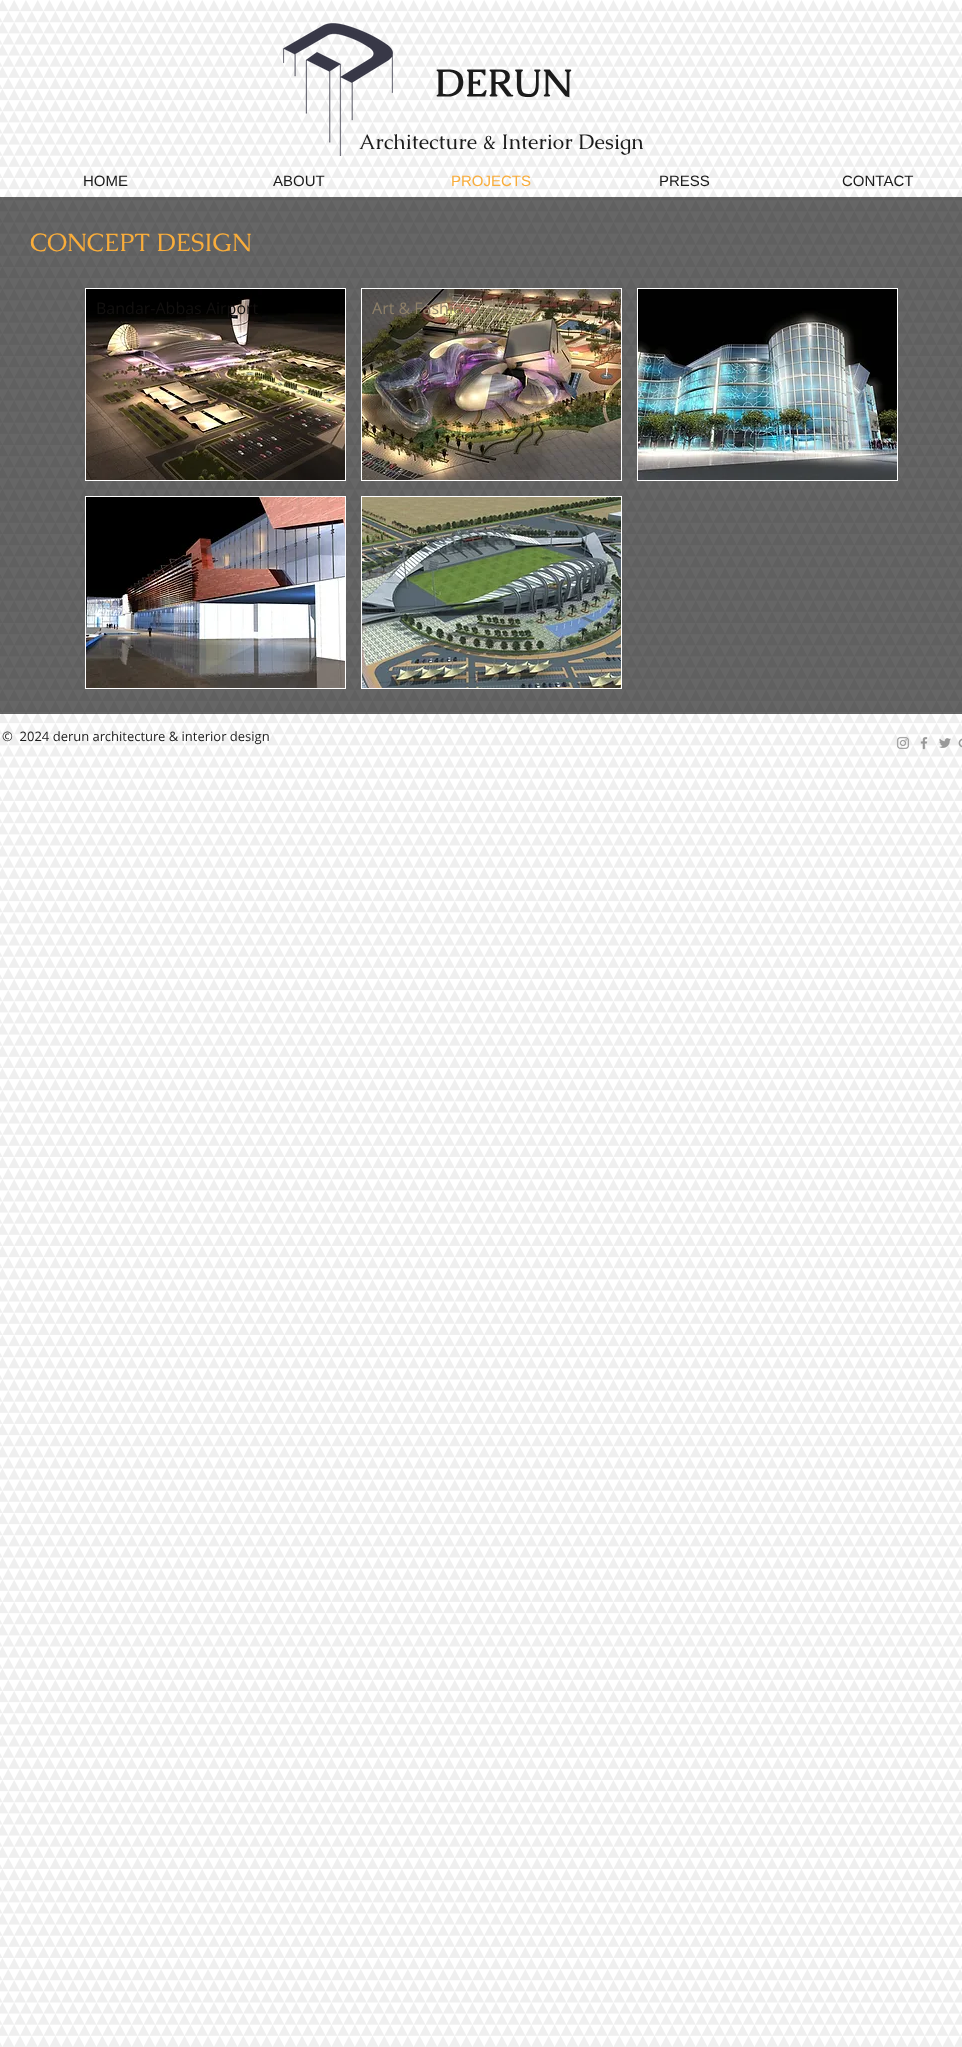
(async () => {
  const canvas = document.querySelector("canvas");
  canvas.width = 962;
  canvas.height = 2047;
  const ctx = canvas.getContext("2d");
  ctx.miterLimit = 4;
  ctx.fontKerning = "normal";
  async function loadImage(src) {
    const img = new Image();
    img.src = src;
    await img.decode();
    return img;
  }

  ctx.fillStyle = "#ffffff";
  ctx.fillRect(0, 0, 962, 2047);
  ctx.drawImage(await loadImage("img/1.png"), 0, 0, 962, 2047);
  ctx.fillStyle = "rgba(0, 0, 0, 0.6)";
  ctx.fillRect(0, 197, 962, 517);
  ctx.fillStyle = "#ffffff";
  ctx.fillRect(85, 288, 261, 193);
  ctx.drawImage(await loadImage("img/3.png"), 86, 289, 259, 191);
  ctx.fillRect(361, 288, 261, 193);
  ctx.drawImage(await loadImage("img/4.png"), 362, 289, 259, 191);
  ctx.fillRect(637, 288, 261, 193);
  ctx.drawImage(await loadImage("img/5.png"), 638, 289, 259, 191);
  ctx.fillRect(85, 496, 261, 193);
  ctx.drawImage(await loadImage("img/6.png"), 86, 497, 259, 191);
  ctx.fillRect(361, 496, 261, 193);
  ctx.drawImage(await loadImage("img/7.png"), 362, 497, 259, 191);
  ctx.drawImage(await loadImage("img/8.png"), 896, 736, 13, 13);
  ctx.drawImage(await loadImage("img/9.png"), 920, 736, 8, 14);
  ctx.drawImage(await loadImage("img/10.png"), 939, 738, 12, 10);
  ctx.drawImage(await loadImage("img/11.png"), 958, 738, 4, 10);
  ctx.font = "bold 38px Caudex";
  ctx.fillStyle = "#1a1a1a";
  ctx.fillText("DERUN", 435, 96);
  ctx.font = "21px Caudex";
  ctx.fillText("Architecture & Interior Design", 359, 149);
  ctx.drawImage(await loadImage("img/2.png"), 283, 23, 110, 133);
  ctx.font = "15px Liberation Sans";
  ctx.fillText("HOME", 83, 186);
  ctx.fillText("ABOUT", 273, 186);
  ctx.fillStyle = "#f9ad3b";
  ctx.fillText("PROJECTS", 451, 186);
  ctx.fillStyle = "#1a1a1a";
  ctx.fillText("PRESS", 659, 186);
  ctx.fillText("CONTACT", 842, 186);
  ctx.font = "25px Caudex";
  ctx.fillStyle = "#f9ad3b";
  ctx.fillText("CONCEPT DESIGN", 30, 251);
  ctx.font = "16px Open Sans";
  ctx.fillStyle = "#131110";
  ctx.fillText("Bandar-Abbas Airport", 96, 314);
  ctx.fillStyle = "#8f8169";
  ctx.fillText("Art & Fashion Collage", 372, 314);
  ctx.font = "13px Open Sans";
  ctx.fillStyle = "#1a1a1a";
  ctx.fillText("©  2024 derun architecture & interior design", 2, 741);
})();
